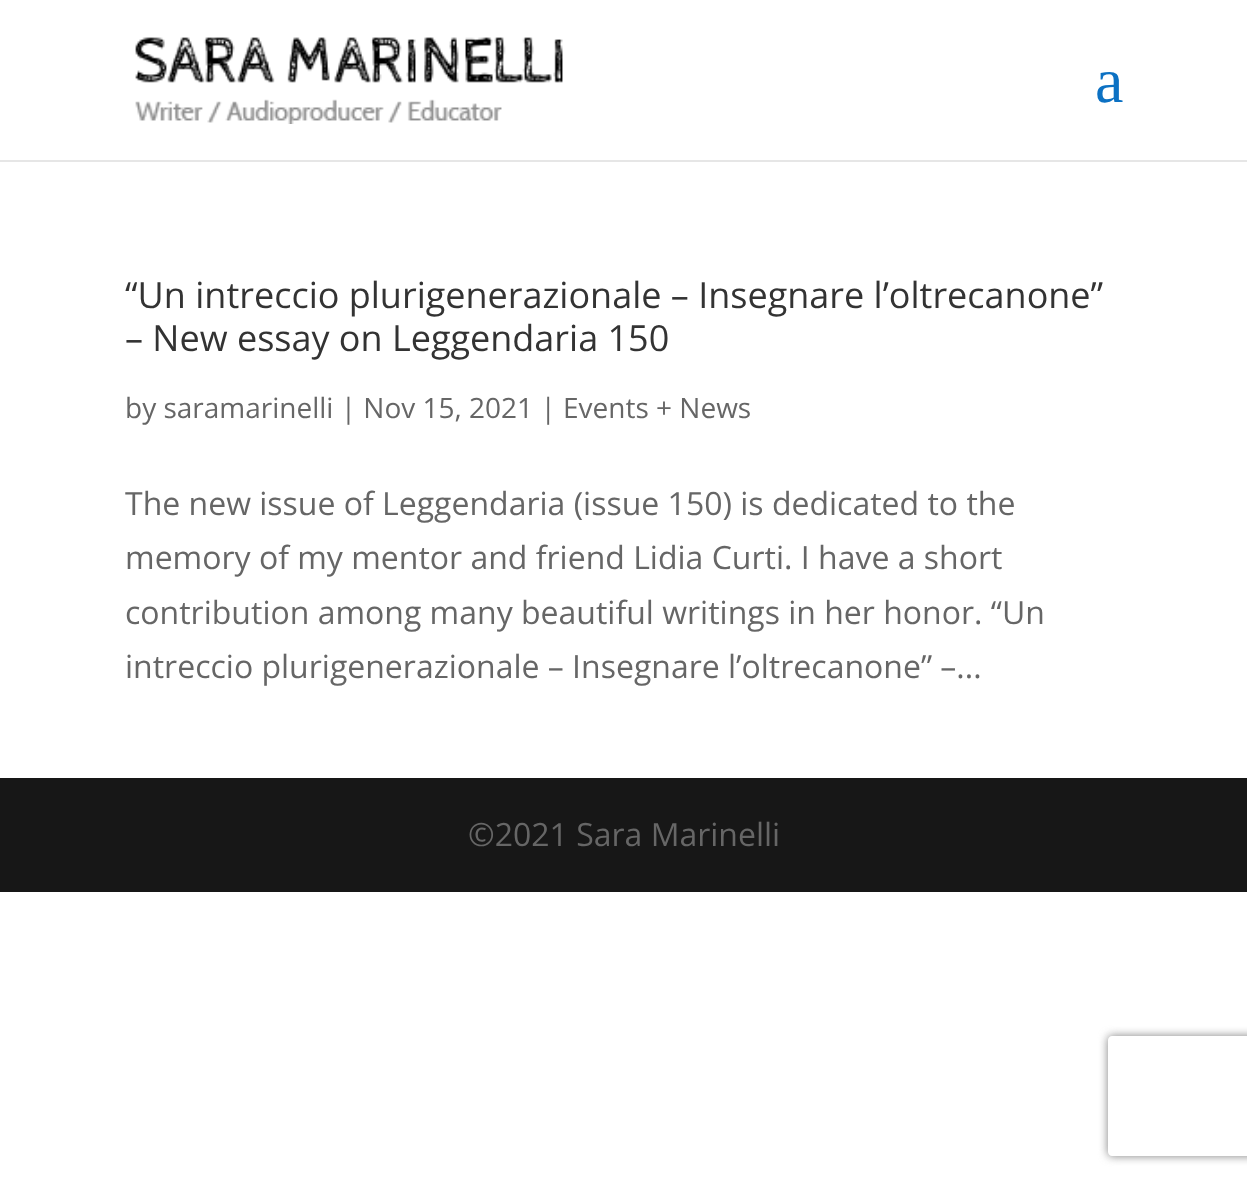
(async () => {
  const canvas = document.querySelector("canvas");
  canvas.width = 1247;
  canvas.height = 1183;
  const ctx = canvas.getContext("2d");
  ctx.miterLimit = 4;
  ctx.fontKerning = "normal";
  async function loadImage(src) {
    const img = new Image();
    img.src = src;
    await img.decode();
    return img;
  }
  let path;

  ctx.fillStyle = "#ffffff";
  ctx.fillRect(0, 0, 1247, 1183);
  ctx.fillStyle = "#e6e6e6";
  ctx.fillRect(0, 160, 1247, 2);
  ctx.drawImage(await loadImage("img/1.png"), 135, 37, 428, 87);
  ctx.fillStyle = "#171717";
  ctx.fillRect(0, 778, 1247, 114);
  ctx.save();
  path = new Path2D("M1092 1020H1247V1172H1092ZM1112 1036H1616C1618 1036 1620 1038 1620 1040V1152C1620 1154 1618 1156 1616 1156H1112C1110 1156 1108 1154 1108 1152V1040C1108 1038 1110 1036 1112 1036Z");
  ctx.clip(path, "evenodd");
  ctx.fillStyle = "#808080";
  ctx.filter = "blur(5px)";
  ctx.beginPath();
  ctx.roundRect(1108, 1036, 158, 120, 4);
  ctx.fill();
  ctx.filter = "none";
  ctx.restore();
  ctx.font = "64px Liberation Serif";
  ctx.fillStyle = "#0c71c3";
  ctx.fillText("a", 1095, 102);
  ctx.font = "36px Open Sans";
  ctx.fillStyle = "#333333";
  ctx.fillText("“Un intreccio plurigenerazionale – Insegnare l’oltrecanone”", 125, 308);
  ctx.fillText("– New essay on Leggendaria 150", 125, 351);
  ctx.font = "28px Open Sans";
  ctx.fillStyle = "#666666";
  ctx.fillText("by saramarinelli | Nov 15, 2021 | Events + News", 125, 418);
  ctx.font = "32px Open Sans";
  for (const [text, x, y] of [
    ["The new issue of Leggendaria (issue 150) is dedicated to the", 125, 515],
    ["memory of my mentor and friend Lidia Curti. I have a short", 125, 569],
    ["contribution among many beautiful writings in her honor. “Un", 125, 624],
    ["intreccio plurigenerazionale – Insegnare l’oltrecanone” –...", 125, 678],
    ["©2021 Sara Marinelli", 468, 846],
  ]) {
    ctx.fillText(text, x, y);
  }
})();
